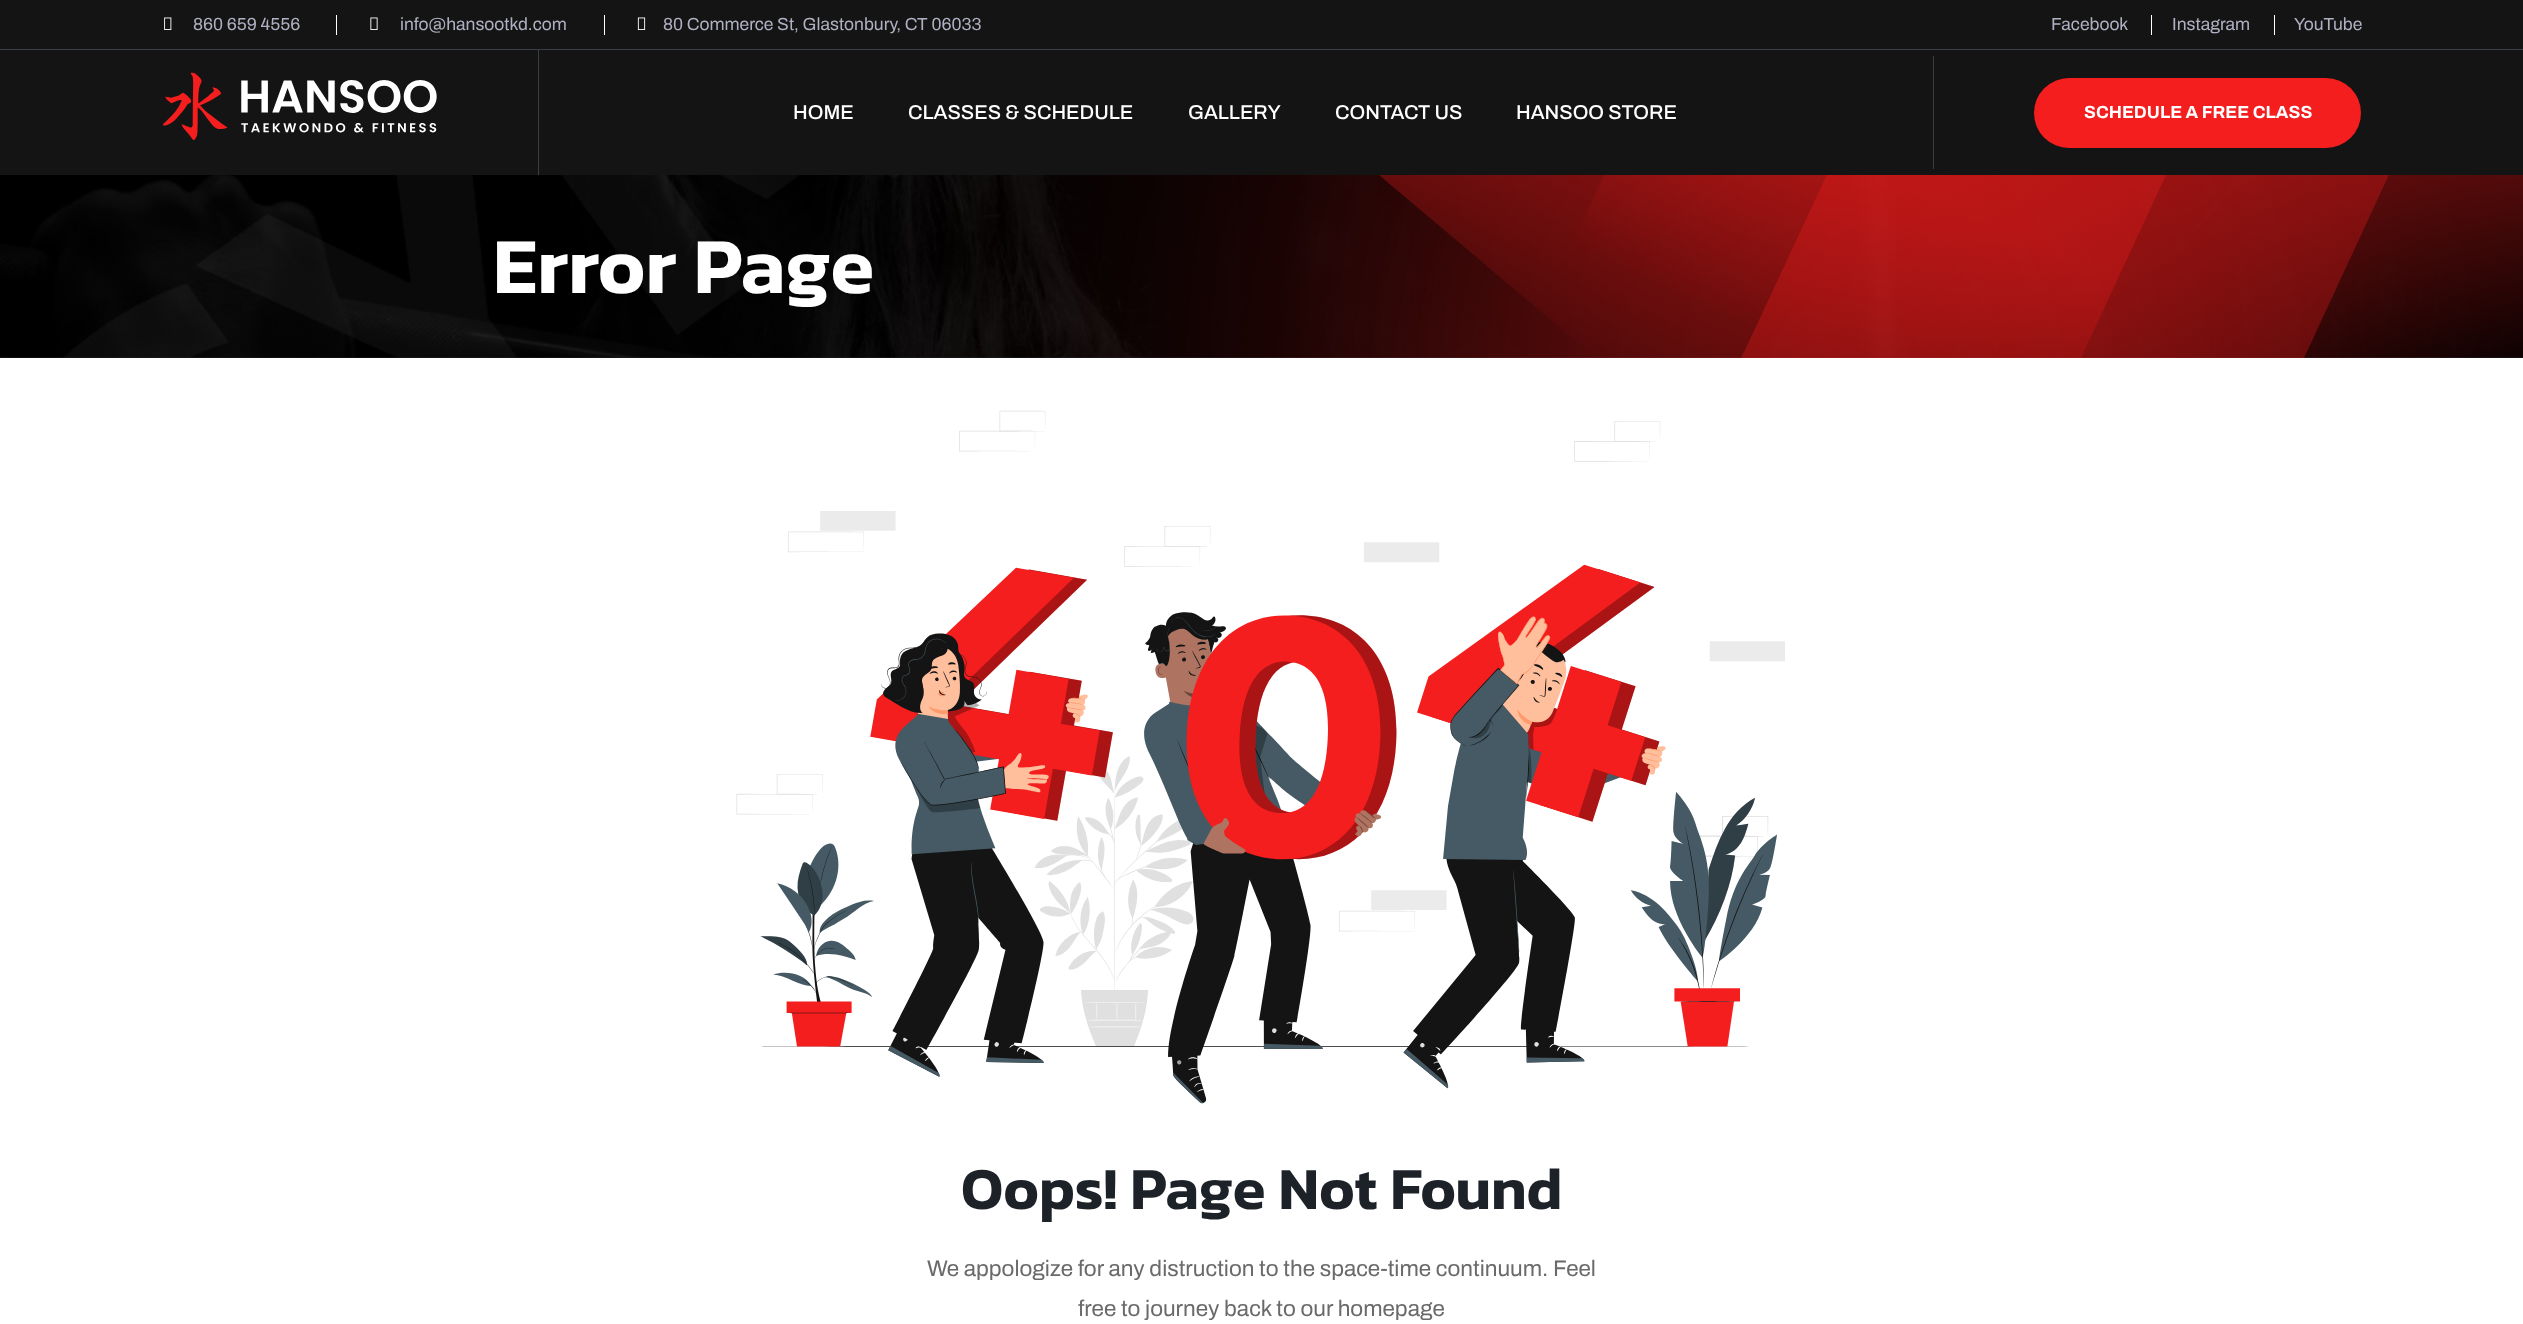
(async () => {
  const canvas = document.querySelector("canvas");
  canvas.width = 2523;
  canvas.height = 1324;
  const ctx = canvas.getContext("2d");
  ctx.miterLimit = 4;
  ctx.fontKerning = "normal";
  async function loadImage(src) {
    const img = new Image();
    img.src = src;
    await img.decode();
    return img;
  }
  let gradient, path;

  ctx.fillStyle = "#ffffff";
  ctx.fillRect(0, 0, 2523, 1324);
  ctx.fillStyle = "#1d2229";
  ctx.fillRect(0, 357, 2523, 1);
  ctx.drawImage(await loadImage("img/5.png"), 0, 175, 2523, 183);
  gradient = ctx.createLinearGradient(1885, 175, 1800, 358);
  gradient.addColorStop(0, "rgba(244, 30, 30, 0.3)");
  gradient.addColorStop(1, "rgba(244, 30, 30, 0)");
  ctx.fillStyle = gradient;
  path = new Path2D("M1604 175H2166L2081 358H1519Z");
  ctx.fill(path);
  ctx.fillStyle = "rgba(244, 30, 30, 0.3)";
  path = new Path2D("M1844 138H2406L2304 358H1741L1746 348Z");
  ctx.fill(path);
  ctx.drawImage(await loadImage("img/6.png"), 736, 410, 1049, 694);
  ctx.save();
  ctx.beginPath();
  ctx.rect(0, 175, 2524, 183);
  ctx.clip();
  ctx.fillStyle = "#f41e1e";
  ctx.filter = "blur(312.5px)";
  ctx.beginPath();
  ctx.roundRect(1519, 45, 642, 643, 321);
  ctx.fill();
  ctx.filter = "none";
  ctx.restore();
  ctx.fillStyle = "#141414";
  ctx.fillRect(0, 0, 2523, 175);
  ctx.fillStyle = "#383d46";
  ctx.fillRect(0, 49, 2523, 1);
  ctx.drawImage(await loadImage("img/1.png"), 164, 17, 8, 13);
  ctx.fillStyle = "#ffffff";
  ctx.fillRect(336, 15, 1, 20);
  ctx.drawImage(await loadImage("img/2.png"), 370, 17, 8, 13);
  ctx.fillRect(604, 15, 1, 20);
  ctx.drawImage(await loadImage("img/3.png"), 637, 17, 9, 13);
  for (const [x, y, w, h, color] of [
    [2151, 15, 1, 20, "#ffffff"],
    [2274, 15, 1, 20, "#ffffff"],
    [538, 50, 1, 125, "#383d46"],
  ]) {
    ctx.fillStyle = color;
    ctx.fillRect(x, y, w, h);
  }
  ctx.drawImage(await loadImage("img/4.png"), 163, 72, 274, 68);
  ctx.fillRect(1933, 56, 1, 113);
  ctx.fillStyle = "#f41e1e";
  ctx.beginPath();
  ctx.roundRect(2034, 78, 327, 70, 35);
  ctx.fill();
  gradient = ctx.createLinearGradient(1951, 175, 1951, 358);
  gradient.addColorStop(0, "rgba(244, 30, 30, 0.3)");
  gradient.addColorStop(1, "rgba(244, 30, 30, 0)");
  ctx.fillStyle = gradient;
  path = new Path2D("M1379 175L1596 358H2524V175Z");
  ctx.fill(path);
  ctx.font = "17.5px Archivo";
  ctx.fillStyle = "#afb1c3";
  for (const [text, x, y] of [
    ["860 659 4556", 193, 30],
    ["info@hansootkd.com", 400, 30],
    ["80 Commerce St, Glastonbury, CT 06033", 663, 30],
    ["Facebook", 2051, 30],
    ["Instagram", 2172, 30],
    ["YouTube", 2294, 30],
  ]) {
    ctx.fillText(text, x, y);
  }
  ctx.font = "500 20px Archivo";
  ctx.fillStyle = "#ffffff";
  for (const [text, x, y] of [
    ["HOME", 793, 119],
    ["CLASSES & SCHEDULE", 908, 119],
    ["GALLERY", 1188, 119],
    ["CONTACT US", 1335, 119],
    ["HANSOO STORE", 1516, 119],
  ]) {
    ctx.fillText(text, x, y);
  }
  ctx.font = "bold 17.5px Archivo";
  ctx.fillText("SCHEDULE A FREE CLASS", 2084, 118);
  ctx.font = "600 80px Kanit";
  ctx.fillText("Error Page", 493, 293);
  ctx.font = "600 60px Kanit";
  ctx.fillStyle = "#1d2229";
  ctx.fillText("Oops! Page Not Found", 961, 1209);
  ctx.font = "22.5px Archivo";
  ctx.fillStyle = "#6a6a6a";
  ctx.fillText("We appologize for any distruction to the space-time continuum. Feel", 927, 1276);
  ctx.fillText("free to journey back to our homepage", 1078, 1316);
})();
